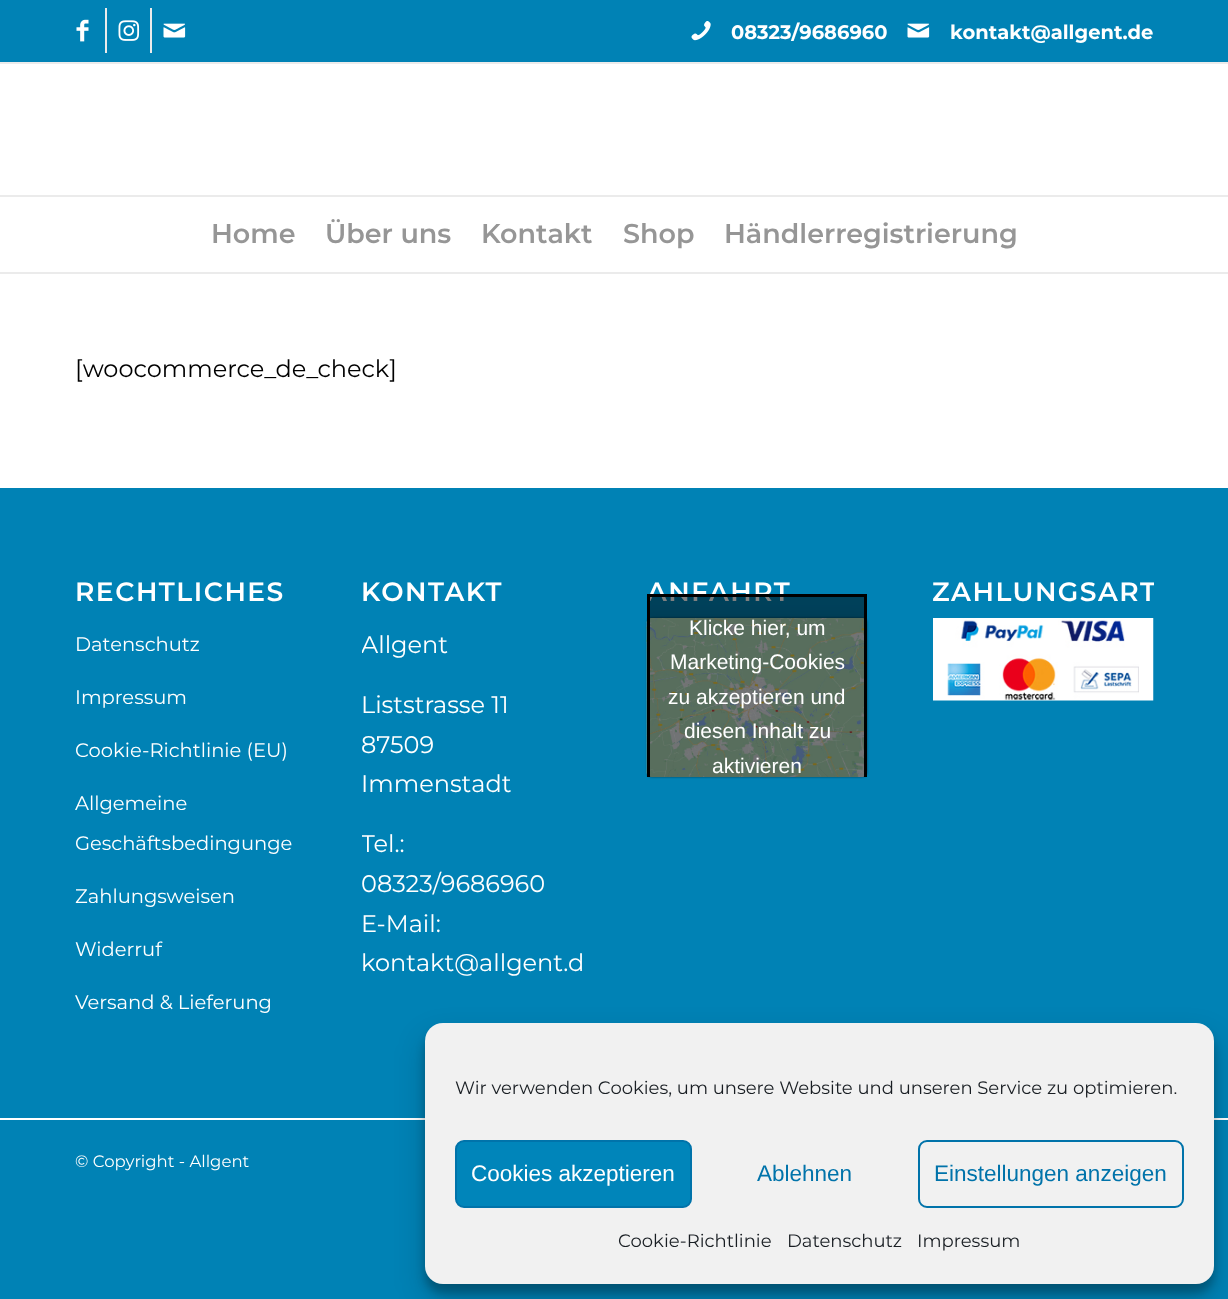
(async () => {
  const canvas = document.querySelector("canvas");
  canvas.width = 1228;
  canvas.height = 1299;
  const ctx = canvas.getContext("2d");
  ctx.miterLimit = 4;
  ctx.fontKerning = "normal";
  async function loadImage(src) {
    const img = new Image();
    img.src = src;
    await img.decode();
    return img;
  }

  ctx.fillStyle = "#0082b5";
  ctx.fillRect(0, 0, 1228, 1299);
  for (const [x, y, w, h, color] of [
    [0, 64, 1228, 424, "#ffffff"],
    [0, 62, 1228, 2, "#ebebeb"],
    [105, 8, 2, 45, "#ebebeb"],
  ]) {
    ctx.fillStyle = color;
    ctx.fillRect(x, y, w, h);
  }
  ctx.drawImage(await loadImage("img/1.png"), 76, 19, 13, 23);
  ctx.fillRect(150, 8, 2, 45);
  ctx.drawImage(await loadImage("img/2.png"), 118, 20, 22, 21);
  ctx.drawImage(await loadImage("img/3.png"), 163, 23, 23, 15);
  ctx.drawImage(await loadImage("img/4.png"), 691, 21, 20, 20);
  ctx.drawImage(await loadImage("img/3.png"), 907, 23, 23, 15);
  ctx.fillRect(0, 272, 1228, 2);
  ctx.fillRect(0, 195, 1228, 2);
  ctx.save();
  ctx.beginPath();
  ctx.rect(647, 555, 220, 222);
  ctx.clip();
  ctx.fillStyle = "rgba(0, 0, 0, 0.15)";
  ctx.filter = "blur(7.5px)";
  ctx.beginPath();
  ctx.roundRect(647, 620, 220, 159, 5);
  ctx.fill();
  ctx.filter = "none";
  ctx.restore();
  ctx.fillStyle = "rgba(0, 0, 0, 0.5)";
  ctx.filter = "blur(1px)";
  ctx.beginPath();
  ctx.roundRect(647, 618, 220, 159, 5);
  ctx.fill();
  ctx.filter = "none";
  ctx.drawImage(await loadImage("img/5.png"), 646, 618, 218, 159);
  ctx.drawImage(await loadImage("img/6.png"), 933, 618, 221, 83);
  ctx.fillStyle = "#ffffff";
  ctx.fillRect(0, 1118, 1228, 2);
  ctx.fillStyle = "rgba(0, 0, 0, 0.23)";
  ctx.filter = "blur(4.5px)";
  ctx.beginPath();
  ctx.roundRect(425, 1032, 789, 261, 18);
  ctx.fill();
  ctx.filter = "none";
  ctx.fillStyle = "rgba(0, 0, 0, 0.19)";
  ctx.filter = "blur(15px)";
  ctx.beginPath();
  ctx.roundRect(425, 1038, 789, 261, 18);
  ctx.fill();
  ctx.filter = "none";
  ctx.fillStyle = "#f1f1f1";
  ctx.beginPath();
  ctx.roundRect(425, 1023, 789, 261, 18);
  ctx.fill();
  ctx.fillStyle = "#0085ba";
  ctx.beginPath();
  ctx.roundRect(456, 1141, 235, 66, 8);
  ctx.fill();
  ctx.strokeStyle = "#0073aa";
  ctx.lineWidth = 2;
  ctx.stroke();
  ctx.beginPath();
  ctx.roundRect(919, 1141, 264, 66, 8);
  ctx.stroke();
  ctx.font = "bold 19.5px Montserrat";
  ctx.fillStyle = "#ffffff";
  ctx.fillText("08323/9686960", 731, 39);
  ctx.fillText("kontakt@allgent.de", 950, 39);
  ctx.font = "600 27px Montserrat";
  ctx.fillStyle = "#969696";
  for (const [text, x, y] of [
    ["Home", 211, 243],
    ["Über uns", 325, 243],
    ["Kontakt", 481, 243],
    ["Shop", 623, 243],
    ["Händlerregistrierung", 724, 243],
  ]) {
    ctx.fillText(text, x, y);
  }
  ctx.font = "24px Montserrat";
  ctx.fillStyle = "#000000";
  ctx.fillText("[woocommerce_de_check]", 75, 377);
  ctx.letterSpacing = "1.5px";
  ctx.font = "600 26.5px Montserrat";
  ctx.fillStyle = "#ffffff";
  ctx.fillText("RECHTLICHES", 75, 601);
  ctx.letterSpacing = "0px";
  ctx.font = "19.5px Montserrat";
  for (const [text, x, y] of [
    ["Datenschutz", 75, 651],
    ["Impressum", 75, 704],
    ["Cookie-Richtlinie (EU)", 75, 757],
    ["Allgemeine", 75, 810],
    ["Geschäftsbedingunge", 75, 850],
    ["Zahlungsweisen", 75, 903],
    ["Widerruf", 75, 956],
    ["Versand & Lieferung", 75, 1009],
  ]) {
    ctx.fillText(text, x, y);
  }
  ctx.letterSpacing = "1.5px";
  ctx.font = "600 26.5px Montserrat";
  ctx.fillText("KONTAKT", 361, 601);
  ctx.save();
  ctx.beginPath();
  ctx.rect(362, 555, 220, 450);
  ctx.clip();
  ctx.letterSpacing = "0px";
  ctx.font = "24px Montserrat";
  ctx.fillText("Allgent", 361, 653);
  ctx.restore();
  ctx.letterSpacing = "0px";
  ctx.font = "24px Montserrat";
  for (const [text, x, y] of [
    ["Liststrasse 11", 361, 713],
    ["87509", 361, 753],
    ["Immenstadt", 361, 792],
  ]) {
    ctx.fillText(text, x, y);
  }
  ctx.save();
  ctx.beginPath();
  ctx.rect(362, 555, 220, 450);
  ctx.clip();
  ctx.fillText("Tel.:", 361, 852);
  ctx.restore();
  for (const [text, x, y] of [
    ["08323/9686960", 361, 892],
    ["E-Mail:", 361, 932],
    ["kontakt@allgent.d", 361, 971],
  ]) {
    ctx.fillText(text, x, y);
  }
  ctx.letterSpacing = "1.5px";
  ctx.font = "600 26.5px Montserrat";
  ctx.fillText("ANFAHRT", 647, 601);
  ctx.fillStyle = "rgba(0, 0, 0, 0.5)";
  ctx.fillRect(650, 597, 214, 180);
  ctx.save();
  ctx.beginPath();
  ctx.rect(647, 555, 220, 222);
  ctx.clip();
  ctx.strokeStyle = "#000000";
  ctx.lineWidth = 3;
  ctx.strokeRect(648.5, 595.5, 217, 206);
  ctx.restore();
  ctx.letterSpacing = "0px";
  ctx.font = "21px Liberation Sans";
  ctx.fillStyle = "#ffffff";
  for (const [text, x, y] of [
    ["Klicke hier, um", 689, 635],
    ["Marketing-Cookies", 670, 669],
    ["zu akzeptieren und", 668, 704],
    ["diesen Inhalt zu", 684, 738],
    ["aktivieren", 712, 773],
  ]) {
    ctx.fillText(text, x, y);
  }
  ctx.save();
  ctx.beginPath();
  ctx.rect(933, 555, 221, 159);
  ctx.clip();
  ctx.letterSpacing = "1.5px";
  ctx.font = "600 26.5px Montserrat";
  ctx.fillText("ZAHLUNGSART", 932, 601);
  ctx.restore();
  ctx.font = "16.5px Montserrat";
  ctx.fillText("© Copyright - Allgent", 75, 1167);
  ctx.font = "18px Montserrat";
  ctx.fillStyle = "#191e23";
  ctx.fillText("Wir verwenden Cookies, um unsere Website und unseren Service zu optimieren.", 455, 1094);
  ctx.font = "22.5px Liberation Sans";
  ctx.fillStyle = "#ffffff";
  ctx.fillText("Cookies akzeptieren", 471, 1181);
  ctx.fillStyle = "#0073aa";
  ctx.fillText("Ablehnen", 757, 1181);
  ctx.fillText("Einstellungen anzeigen", 934, 1181);
  ctx.font = "18px Montserrat";
  ctx.fillStyle = "#191e23";
  for (const [text, x, y] of [
    ["Cookie-Richtlinie", 618, 1247],
    ["Datenschutz", 787, 1247],
    ["Impressum", 917, 1247],
  ]) {
    ctx.fillText(text, x, y);
  }
})();
